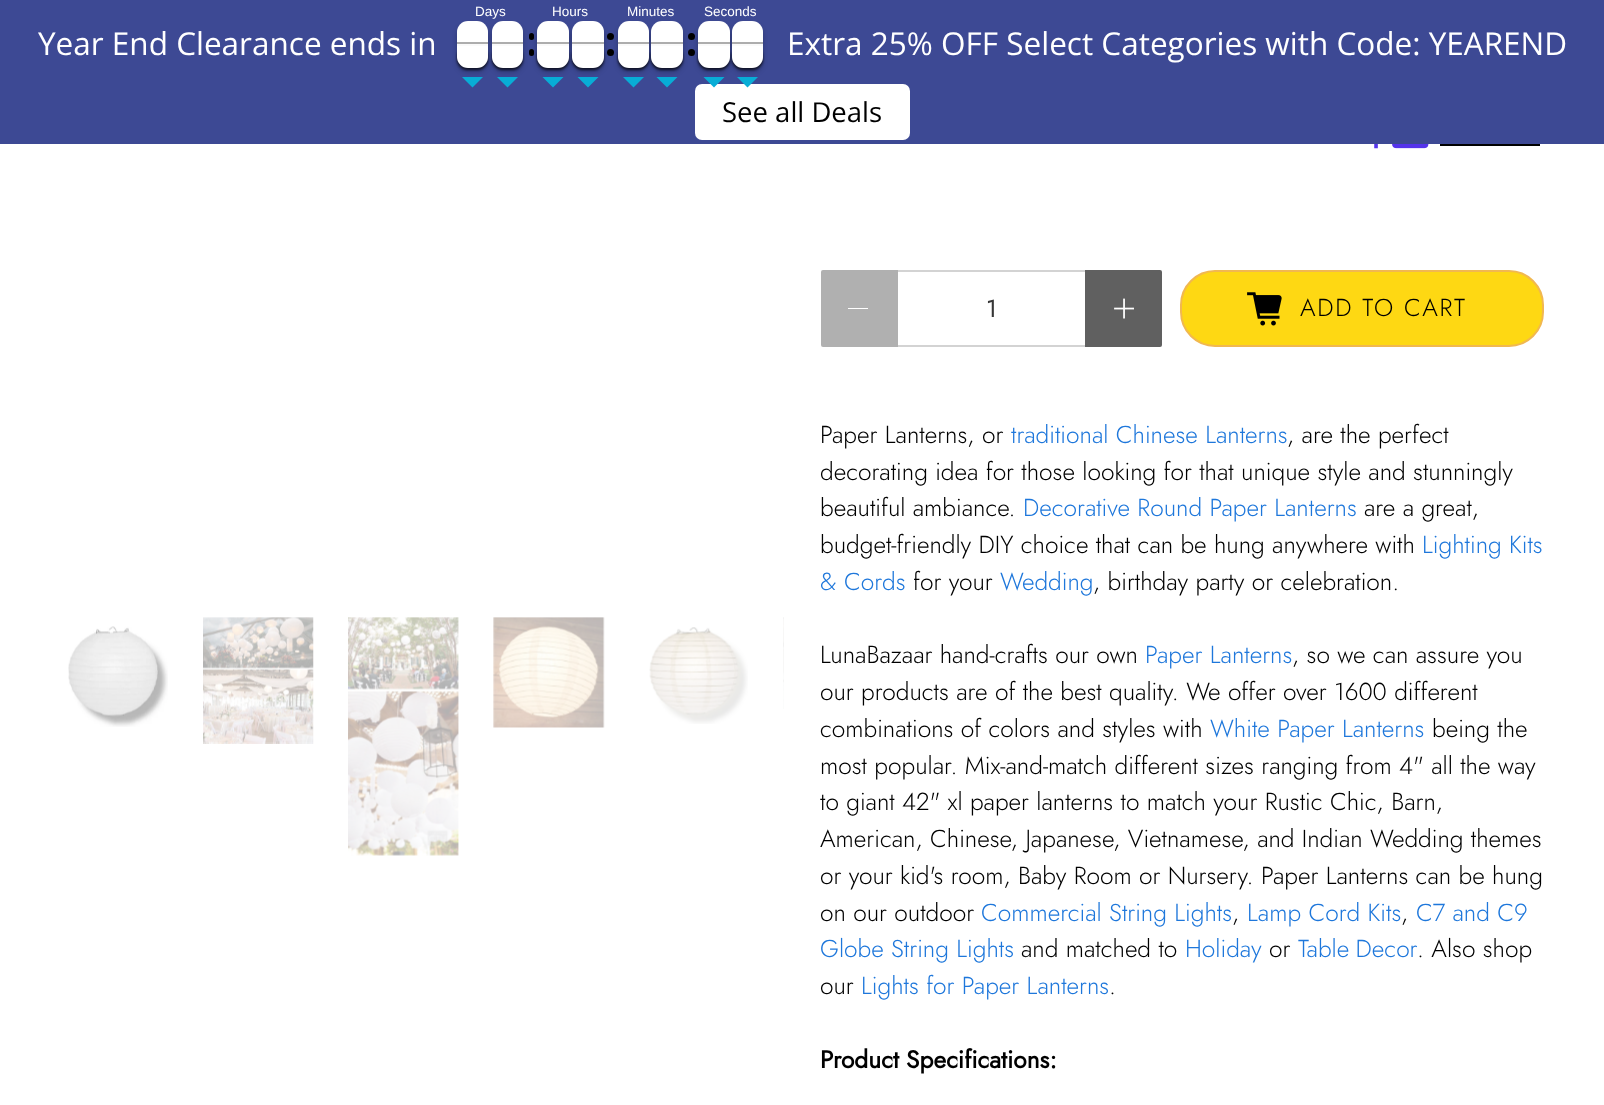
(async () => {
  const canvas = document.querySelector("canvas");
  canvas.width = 1604;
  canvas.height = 1105;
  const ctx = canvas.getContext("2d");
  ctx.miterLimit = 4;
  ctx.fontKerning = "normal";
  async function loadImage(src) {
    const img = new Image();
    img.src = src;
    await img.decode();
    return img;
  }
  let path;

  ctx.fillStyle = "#ffffff";
  ctx.fillRect(0, 0, 1604, 1105);
  ctx.fillStyle = "#3d4994";
  ctx.fillRect(0, 0, 1604, 144);
  ctx.fillStyle = "rgba(0, 0, 0, 0.24)";
  ctx.filter = "blur(2.5px)";
  ctx.beginPath();
  ctx.roundRect(457, 25, 31, 47, 11);
  ctx.fill();
  ctx.filter = "none";
  ctx.fillStyle = "rgba(0, 0, 0, 0.4)";
  ctx.filter = "blur(1px)";
  ctx.beginPath();
  ctx.roundRect(457, 46, 31, 24, 11);
  ctx.fill();
  ctx.filter = "none";
  ctx.fillStyle = "rgba(0, 0, 0, 0.24)";
  ctx.filter = "blur(2.5px)";
  ctx.beginPath();
  ctx.roundRect(492, 25, 31, 47, 11);
  ctx.fill();
  ctx.filter = "none";
  ctx.fillStyle = "#ffffff";
  ctx.beginPath();
  ctx.roundRect(457, 21, 31, 23, [11, 11, 0, 0]);
  ctx.fill();
  ctx.fillStyle = "rgba(51, 51, 51, 0.4)";
  ctx.fillRect(457, 42, 31, 2);
  ctx.fillStyle = "rgba(0, 0, 0, 0.4)";
  ctx.filter = "blur(1px)";
  ctx.beginPath();
  ctx.roundRect(457, 46, 31, 24, 11);
  ctx.fill();
  ctx.filter = "none";
  ctx.fillStyle = "#ffffff";
  ctx.beginPath();
  ctx.roundRect(457, 44, 31, 24, [0, 0, 11, 11]);
  ctx.fill();
  ctx.fillStyle = "rgba(204, 204, 204, 0.1)";
  ctx.fillRect(457, 44, 31, 2);
  ctx.fillStyle = "#08add6";
  path = new Path2D("M462 77H483L472.5 87.5Z");
  ctx.fill(path);
  ctx.fillStyle = "rgba(0, 0, 0, 0.4)";
  ctx.filter = "blur(1px)";
  ctx.beginPath();
  ctx.roundRect(492, 46, 31, 24, 11);
  ctx.fill();
  ctx.filter = "none";
  ctx.fillStyle = "#ffffff";
  ctx.beginPath();
  ctx.roundRect(492, 21, 31, 23, [11, 11, 0, 0]);
  ctx.fill();
  ctx.fillStyle = "rgba(51, 51, 51, 0.4)";
  ctx.fillRect(492, 42, 31, 2);
  ctx.fillStyle = "rgba(0, 0, 0, 0.4)";
  ctx.filter = "blur(1px)";
  ctx.beginPath();
  ctx.roundRect(492, 46, 31, 24, 11);
  ctx.fill();
  ctx.filter = "none";
  ctx.fillStyle = "#ffffff";
  ctx.beginPath();
  ctx.roundRect(492, 44, 31, 24, [0, 0, 11, 11]);
  ctx.fill();
  ctx.fillStyle = "rgba(204, 204, 204, 0.1)";
  ctx.fillRect(492, 44, 31, 2);
  ctx.fillStyle = "#08add6";
  path = new Path2D("M497 77H518L507.5 87.5Z");
  ctx.fill(path);
  ctx.fillStyle = "#000000";
  ctx.beginPath();
  ctx.roundRect(529, 33, 5, 7, 2.5);
  ctx.fill();
  ctx.beginPath();
  ctx.roundRect(529, 49, 5, 7, 2.5);
  ctx.fill();
  ctx.fillStyle = "rgba(0, 0, 0, 0.24)";
  ctx.filter = "blur(2.5px)";
  ctx.beginPath();
  ctx.roundRect(537, 25, 32, 47, 11);
  ctx.fill();
  ctx.filter = "none";
  ctx.fillStyle = "rgba(0, 0, 0, 0.4)";
  ctx.filter = "blur(1px)";
  ctx.beginPath();
  ctx.roundRect(537, 46, 32, 24, 11);
  ctx.fill();
  ctx.filter = "none";
  ctx.fillStyle = "#08add6";
  path = new Path2D("M542.5 77H563.5L553 87.5Z");
  ctx.fill(path);
  ctx.fillStyle = "rgba(0, 0, 0, 0.24)";
  ctx.filter = "blur(2.5px)";
  ctx.beginPath();
  ctx.roundRect(572, 25, 32, 47, 11);
  ctx.fill();
  ctx.filter = "none";
  ctx.fillStyle = "#000000";
  ctx.beginPath();
  ctx.arc(610.5, 52.5, 3.5, 0, Math.PI * 2);
  ctx.fill();
  ctx.fillStyle = "rgba(0, 0, 0, 0.4)";
  ctx.filter = "blur(1px)";
  ctx.beginPath();
  ctx.roundRect(572, 46, 32, 24, 11);
  ctx.fill();
  ctx.filter = "none";
  ctx.fillStyle = "#ffffff";
  ctx.beginPath();
  ctx.roundRect(537, 21, 32, 23, [11, 11, 0, 0]);
  ctx.fill();
  ctx.fillStyle = "rgba(51, 51, 51, 0.4)";
  ctx.fillRect(537, 42, 32, 2);
  ctx.fillStyle = "rgba(0, 0, 0, 0.4)";
  ctx.filter = "blur(1px)";
  ctx.beginPath();
  ctx.roundRect(537, 46, 32, 24, 11);
  ctx.fill();
  ctx.filter = "none";
  ctx.fillStyle = "#ffffff";
  ctx.beginPath();
  ctx.roundRect(537, 44, 32, 24, [0, 0, 11, 11]);
  ctx.fill();
  ctx.fillStyle = "rgba(204, 204, 204, 0.1)";
  ctx.fillRect(537, 44, 32, 2);
  ctx.fillStyle = "#ffffff";
  ctx.beginPath();
  ctx.roundRect(572, 21, 32, 23, [11, 11, 0, 0]);
  ctx.fill();
  ctx.fillStyle = "rgba(51, 51, 51, 0.4)";
  ctx.fillRect(572, 42, 32, 2);
  ctx.fillStyle = "rgba(0, 0, 0, 0.4)";
  ctx.filter = "blur(1px)";
  ctx.beginPath();
  ctx.roundRect(572, 46, 32, 24, 11);
  ctx.fill();
  ctx.filter = "none";
  ctx.fillStyle = "#ffffff";
  ctx.beginPath();
  ctx.roundRect(572, 44, 32, 24, [0, 0, 11, 11]);
  ctx.fill();
  ctx.fillStyle = "rgba(204, 204, 204, 0.1)";
  ctx.fillRect(572, 44, 32, 2);
  ctx.fillStyle = "#08add6";
  path = new Path2D("M577.5 77H598.5L588 87.5Z");
  ctx.fill(path);
  ctx.fillStyle = "#000000";
  ctx.beginPath();
  ctx.arc(610.5, 36.5, 3.5, 0, Math.PI * 2);
  ctx.fill();
  ctx.fillStyle = "rgba(0, 0, 0, 0.24)";
  ctx.filter = "blur(2.5px)";
  ctx.beginPath();
  ctx.roundRect(618, 25, 31, 47, 11);
  ctx.fill();
  ctx.filter = "none";
  ctx.fillStyle = "rgba(0, 0, 0, 0.4)";
  ctx.filter = "blur(1px)";
  ctx.beginPath();
  ctx.roundRect(618, 46, 31, 24, 11);
  ctx.fill();
  ctx.filter = "none";
  ctx.fillStyle = "#08add6";
  path = new Path2D("M623 77H644L633.5 87.5Z");
  ctx.fill(path);
  ctx.fillStyle = "rgba(0, 0, 0, 0.24)";
  ctx.filter = "blur(2.5px)";
  ctx.beginPath();
  ctx.roundRect(651, 25, 32, 47, 11);
  ctx.fill();
  ctx.filter = "none";
  ctx.fillStyle = "rgba(0, 0, 0, 0.4)";
  ctx.filter = "blur(1px)";
  ctx.beginPath();
  ctx.roundRect(651, 46, 32, 24, 11);
  ctx.fill();
  ctx.filter = "none";
  ctx.fillStyle = "#ffffff";
  ctx.beginPath();
  ctx.roundRect(618, 21, 31, 23, [11, 11, 0, 0]);
  ctx.fill();
  ctx.fillStyle = "rgba(51, 51, 51, 0.4)";
  ctx.fillRect(618, 42, 31, 2);
  ctx.fillStyle = "rgba(0, 0, 0, 0.4)";
  ctx.filter = "blur(1px)";
  ctx.beginPath();
  ctx.roundRect(618, 46, 31, 24, 11);
  ctx.fill();
  ctx.filter = "none";
  ctx.fillStyle = "#ffffff";
  ctx.beginPath();
  ctx.roundRect(618, 44, 31, 24, [0, 0, 11, 11]);
  ctx.fill();
  ctx.fillStyle = "rgba(204, 204, 204, 0.1)";
  ctx.fillRect(618, 44, 31, 2);
  ctx.fillStyle = "#ffffff";
  ctx.beginPath();
  ctx.roundRect(651, 21, 32, 23, [11, 11, 0, 0]);
  ctx.fill();
  ctx.fillStyle = "rgba(51, 51, 51, 0.4)";
  ctx.fillRect(651, 42, 32, 2);
  ctx.fillStyle = "rgba(0, 0, 0, 0.4)";
  ctx.filter = "blur(1px)";
  ctx.beginPath();
  ctx.roundRect(651, 46, 32, 24, 11);
  ctx.fill();
  ctx.filter = "none";
  ctx.fillStyle = "#ffffff";
  ctx.beginPath();
  ctx.roundRect(651, 44, 32, 24, [0, 0, 11, 11]);
  ctx.fill();
  ctx.fillStyle = "rgba(204, 204, 204, 0.1)";
  ctx.fillRect(651, 44, 32, 2);
  ctx.fillStyle = "#08add6";
  path = new Path2D("M656.5 77H677.5L667 87.5Z");
  ctx.fill(path);
  ctx.fillStyle = "#000000";
  ctx.beginPath();
  ctx.arc(691.5, 36.5, 3.5, 0, Math.PI * 2);
  ctx.fill();
  ctx.beginPath();
  ctx.arc(691.5, 52.5, 3.5, 0, Math.PI * 2);
  ctx.fill();
  ctx.fillStyle = "rgba(0, 0, 0, 0.24)";
  ctx.filter = "blur(2.5px)";
  ctx.beginPath();
  ctx.roundRect(698, 25, 32, 47, 11);
  ctx.fill();
  ctx.filter = "none";
  ctx.fillStyle = "rgba(0, 0, 0, 0.4)";
  ctx.filter = "blur(1px)";
  ctx.beginPath();
  ctx.roundRect(698, 46, 32, 24, 11);
  ctx.fill();
  ctx.filter = "none";
  ctx.fillStyle = "#ffffff";
  ctx.beginPath();
  ctx.roundRect(695, 84, 215, 56, 7);
  ctx.fill();
  ctx.fillStyle = "#08add6";
  path = new Path2D("M703.5 77H724.5L714 87.5Z");
  ctx.fill(path);
  ctx.fillStyle = "rgba(0, 0, 0, 0.24)";
  ctx.filter = "blur(2.5px)";
  ctx.beginPath();
  ctx.roundRect(732, 25, 31, 47, 11);
  ctx.fill();
  ctx.filter = "none";
  ctx.fillStyle = "rgba(0, 0, 0, 0.4)";
  ctx.filter = "blur(1px)";
  ctx.beginPath();
  ctx.roundRect(732, 46, 31, 24, 11);
  ctx.fill();
  ctx.filter = "none";
  ctx.fillStyle = "#ffffff";
  ctx.beginPath();
  ctx.roundRect(698, 21, 32, 23, [11, 11, 0, 0]);
  ctx.fill();
  ctx.fillStyle = "rgba(51, 51, 51, 0.4)";
  ctx.fillRect(698, 42, 32, 2);
  ctx.fillStyle = "rgba(0, 0, 0, 0.4)";
  ctx.filter = "blur(1px)";
  ctx.beginPath();
  ctx.roundRect(698, 46, 32, 24, 11);
  ctx.fill();
  ctx.filter = "none";
  ctx.fillStyle = "#ffffff";
  ctx.beginPath();
  ctx.roundRect(698, 44, 32, 24, [0, 0, 11, 11]);
  ctx.fill();
  ctx.fillStyle = "rgba(204, 204, 204, 0.1)";
  ctx.fillRect(698, 44, 32, 2);
  ctx.fillStyle = "#ffffff";
  ctx.beginPath();
  ctx.roundRect(732, 21, 31, 23, [11, 11, 0, 0]);
  ctx.fill();
  ctx.fillStyle = "rgba(51, 51, 51, 0.4)";
  ctx.fillRect(732, 42, 31, 2);
  ctx.fillStyle = "rgba(0, 0, 0, 0.4)";
  ctx.filter = "blur(1px)";
  ctx.beginPath();
  ctx.roundRect(732, 46, 31, 24, 11);
  ctx.fill();
  ctx.filter = "none";
  ctx.fillStyle = "#ffffff";
  ctx.beginPath();
  ctx.roundRect(732, 44, 31, 24, [0, 0, 11, 11]);
  ctx.fill();
  ctx.fillStyle = "rgba(204, 204, 204, 0.1)";
  ctx.fillRect(732, 44, 31, 2);
  ctx.fillStyle = "#08add6";
  path = new Path2D("M737 77H758L747.5 87.5Z");
  ctx.fill(path);
  ctx.drawImage(await loadImage("img/1.png"), 68, 626, 100, 101);
  ctx.drawImage(await loadImage("img/2.png"), 203, 617, 111, 127);
  ctx.drawImage(await loadImage("img/3.png"), 348, 617, 111, 239);
  ctx.drawImage(await loadImage("img/4.png"), 493, 617, 112, 111);
  ctx.drawImage(await loadImage("img/5.png"), 649, 627, 99, 97);
  ctx.drawImage(await loadImage("img/6.png"), 783, 617, 1, 92);
  ctx.drawImage(await loadImage("img/7.png"), 1374, 144, 55, 5);
  ctx.fillStyle = "#000000";
  ctx.fillRect(1440, 144, 100, 2);
  ctx.fillStyle = "#b0b0b0";
  ctx.beginPath();
  ctx.roundRect(821, 270, 77, 77, [2, 0, 0, 2]);
  ctx.fill();
  for (const [x, y, w, h, color] of [
    [848, 308, 20, 1, "#ffffff"],
    [898, 270, 187, 2, "#d3d3d3"],
    [898, 345, 187, 2, "#d3d3d3"],
  ]) {
    ctx.fillStyle = color;
    ctx.fillRect(x, y, w, h);
  }
  ctx.fillStyle = "#606060";
  ctx.beginPath();
  ctx.roundRect(1085, 270, 77, 77, [0, 2, 2, 0]);
  ctx.fill();
  ctx.drawImage(await loadImage("img/8.png"), 1114, 298, 20, 21);
  ctx.fillStyle = "#fed813";
  ctx.beginPath();
  ctx.roundRect(1181, 271, 362, 75, 34);
  ctx.fill();
  ctx.strokeStyle = "#f1b850";
  ctx.lineWidth = 2;
  ctx.stroke();
  ctx.drawImage(await loadImage("img/9.png"), 1247, 292, 35, 34);
  ctx.font = "13.5px Liberation Sans";
  ctx.fillStyle = "#ffffff";
  for (const [text, x, y] of [
    ["Days", 475, 16],
    ["Hours", 552, 16],
    ["Minutes", 627, 16],
    ["Seconds", 704, 16],
  ]) {
    ctx.fillText(text, x, y);
  }
  ctx.font = "31.5px Open Sans";
  ctx.fillText("Year End Clearance ends in", 38, 55);
  ctx.fillText("Extra 25% OFF Select Categories with Code: YEAREND", 787, 55);
  ctx.font = "27.5px Open Sans";
  ctx.fillStyle = "#000000";
  ctx.fillText("See all Deals", 722, 122);
  ctx.font = "24.5px Jost";
  ctx.fillStyle = "#363636";
  ctx.fillText("1", 986, 317);
  ctx.letterSpacing = "1.75px";
  ctx.font = "300 24.5px Jost";
  ctx.fillStyle = "#000000";
  ctx.fillText("ADD TO CART", 1300, 316);
  ctx.letterSpacing = "0px";
  ctx.fillText("Paper Lanterns, or", 820, 443);
  ctx.fillStyle = "#1e77db";
  ctx.fillText("traditional Chinese Lanterns", 1011, 443);
  ctx.fillStyle = "#000000";
  for (const [text, x, y] of [
    [", are the perfect", 1287, 443],
    ["decorating idea for those looking for that unique style and stunningly", 820, 480],
    ["beautiful ambiance.", 820, 516],
  ]) {
    ctx.fillText(text, x, y);
  }
  ctx.fillStyle = "#1e77db";
  ctx.fillText("Decorative Round Paper Lanterns", 1023, 516);
  ctx.fillStyle = "#000000";
  ctx.fillText("are a great,", 1364, 516);
  ctx.fillText("budget-friendly DIY choice that can be hung anywhere with", 820, 553);
  ctx.fillStyle = "#1e77db";
  ctx.fillText("Lighting Kits", 1422, 553);
  ctx.fillText("& Cords", 820, 590);
  ctx.fillStyle = "#000000";
  ctx.fillText("for your", 913, 590);
  ctx.fillStyle = "#1e77db";
  ctx.fillText("Wedding", 1000, 590);
  ctx.fillStyle = "#000000";
  ctx.fillText(", birthday party or celebration.", 1093, 590);
  ctx.fillText("LunaBazaar hand-crafts our own", 820, 663);
  ctx.fillStyle = "#1e77db";
  ctx.fillText("Paper Lanterns", 1145, 663);
  ctx.fillStyle = "#000000";
  for (const [text, x, y] of [
    [", so we can assure you", 1292, 663],
    ["our products are of the best quality. We offer over 1600 different", 820, 700],
    ["combinations of colors and styles with", 820, 737],
  ]) {
    ctx.fillText(text, x, y);
  }
  ctx.fillStyle = "#1e77db";
  ctx.fillText("White Paper Lanterns", 1210, 737);
  ctx.fillStyle = "#000000";
  for (const [text, x, y] of [
    ["being the", 1432, 737],
    ["most popular. Mix-and-match different sizes ranging from 4\" all the way", 820, 774],
    ["to giant 42\" xl paper lanterns to match your Rustic Chic, Barn,", 820, 810],
    ["American, Chinese, Japanese, Vietnamese, and Indian Wedding themes", 820, 847],
    ["or your kid's room, Baby Room or Nursery. Paper Lanterns can be hung", 820, 884],
    ["on our outdoor", 820, 921],
  ]) {
    ctx.fillText(text, x, y);
  }
  ctx.fillStyle = "#1e77db";
  ctx.fillText("Commercial String Lights", 981, 921);
  ctx.fillStyle = "#000000";
  ctx.fillText(",", 1232, 921);
  ctx.fillStyle = "#1e77db";
  ctx.fillText("Lamp Cord Kits", 1247, 921);
  ctx.fillStyle = "#000000";
  ctx.fillText(",", 1401, 921);
  ctx.fillStyle = "#1e77db";
  ctx.fillText("C7 and C9", 1416, 921);
  ctx.fillText("Globe String Lights", 820, 957);
  ctx.fillStyle = "#000000";
  ctx.fillText("and matched to", 1021, 957);
  ctx.fillStyle = "#1e77db";
  ctx.fillText("Holiday", 1185, 957);
  ctx.fillStyle = "#000000";
  ctx.fillText("or", 1269, 957);
  ctx.wordSpacing = "-1px";
  ctx.fillStyle = "#1e77db";
  ctx.fillText("Table Decor", 1298, 957);
  ctx.wordSpacing = "0px";
  ctx.fillStyle = "#000000";
  ctx.fillText(". Also shop", 1417, 957);
  ctx.fillText("our", 820, 994);
  ctx.fillStyle = "#1e77db";
  ctx.fillText("Lights for Paper Lanterns", 861, 994);
  ctx.fillStyle = "#000000";
  ctx.fillText(".", 1109, 994);
  ctx.font = "bold 24.5px Jost";
  ctx.fillText("Product Specifications:", 820, 1068);
})();
